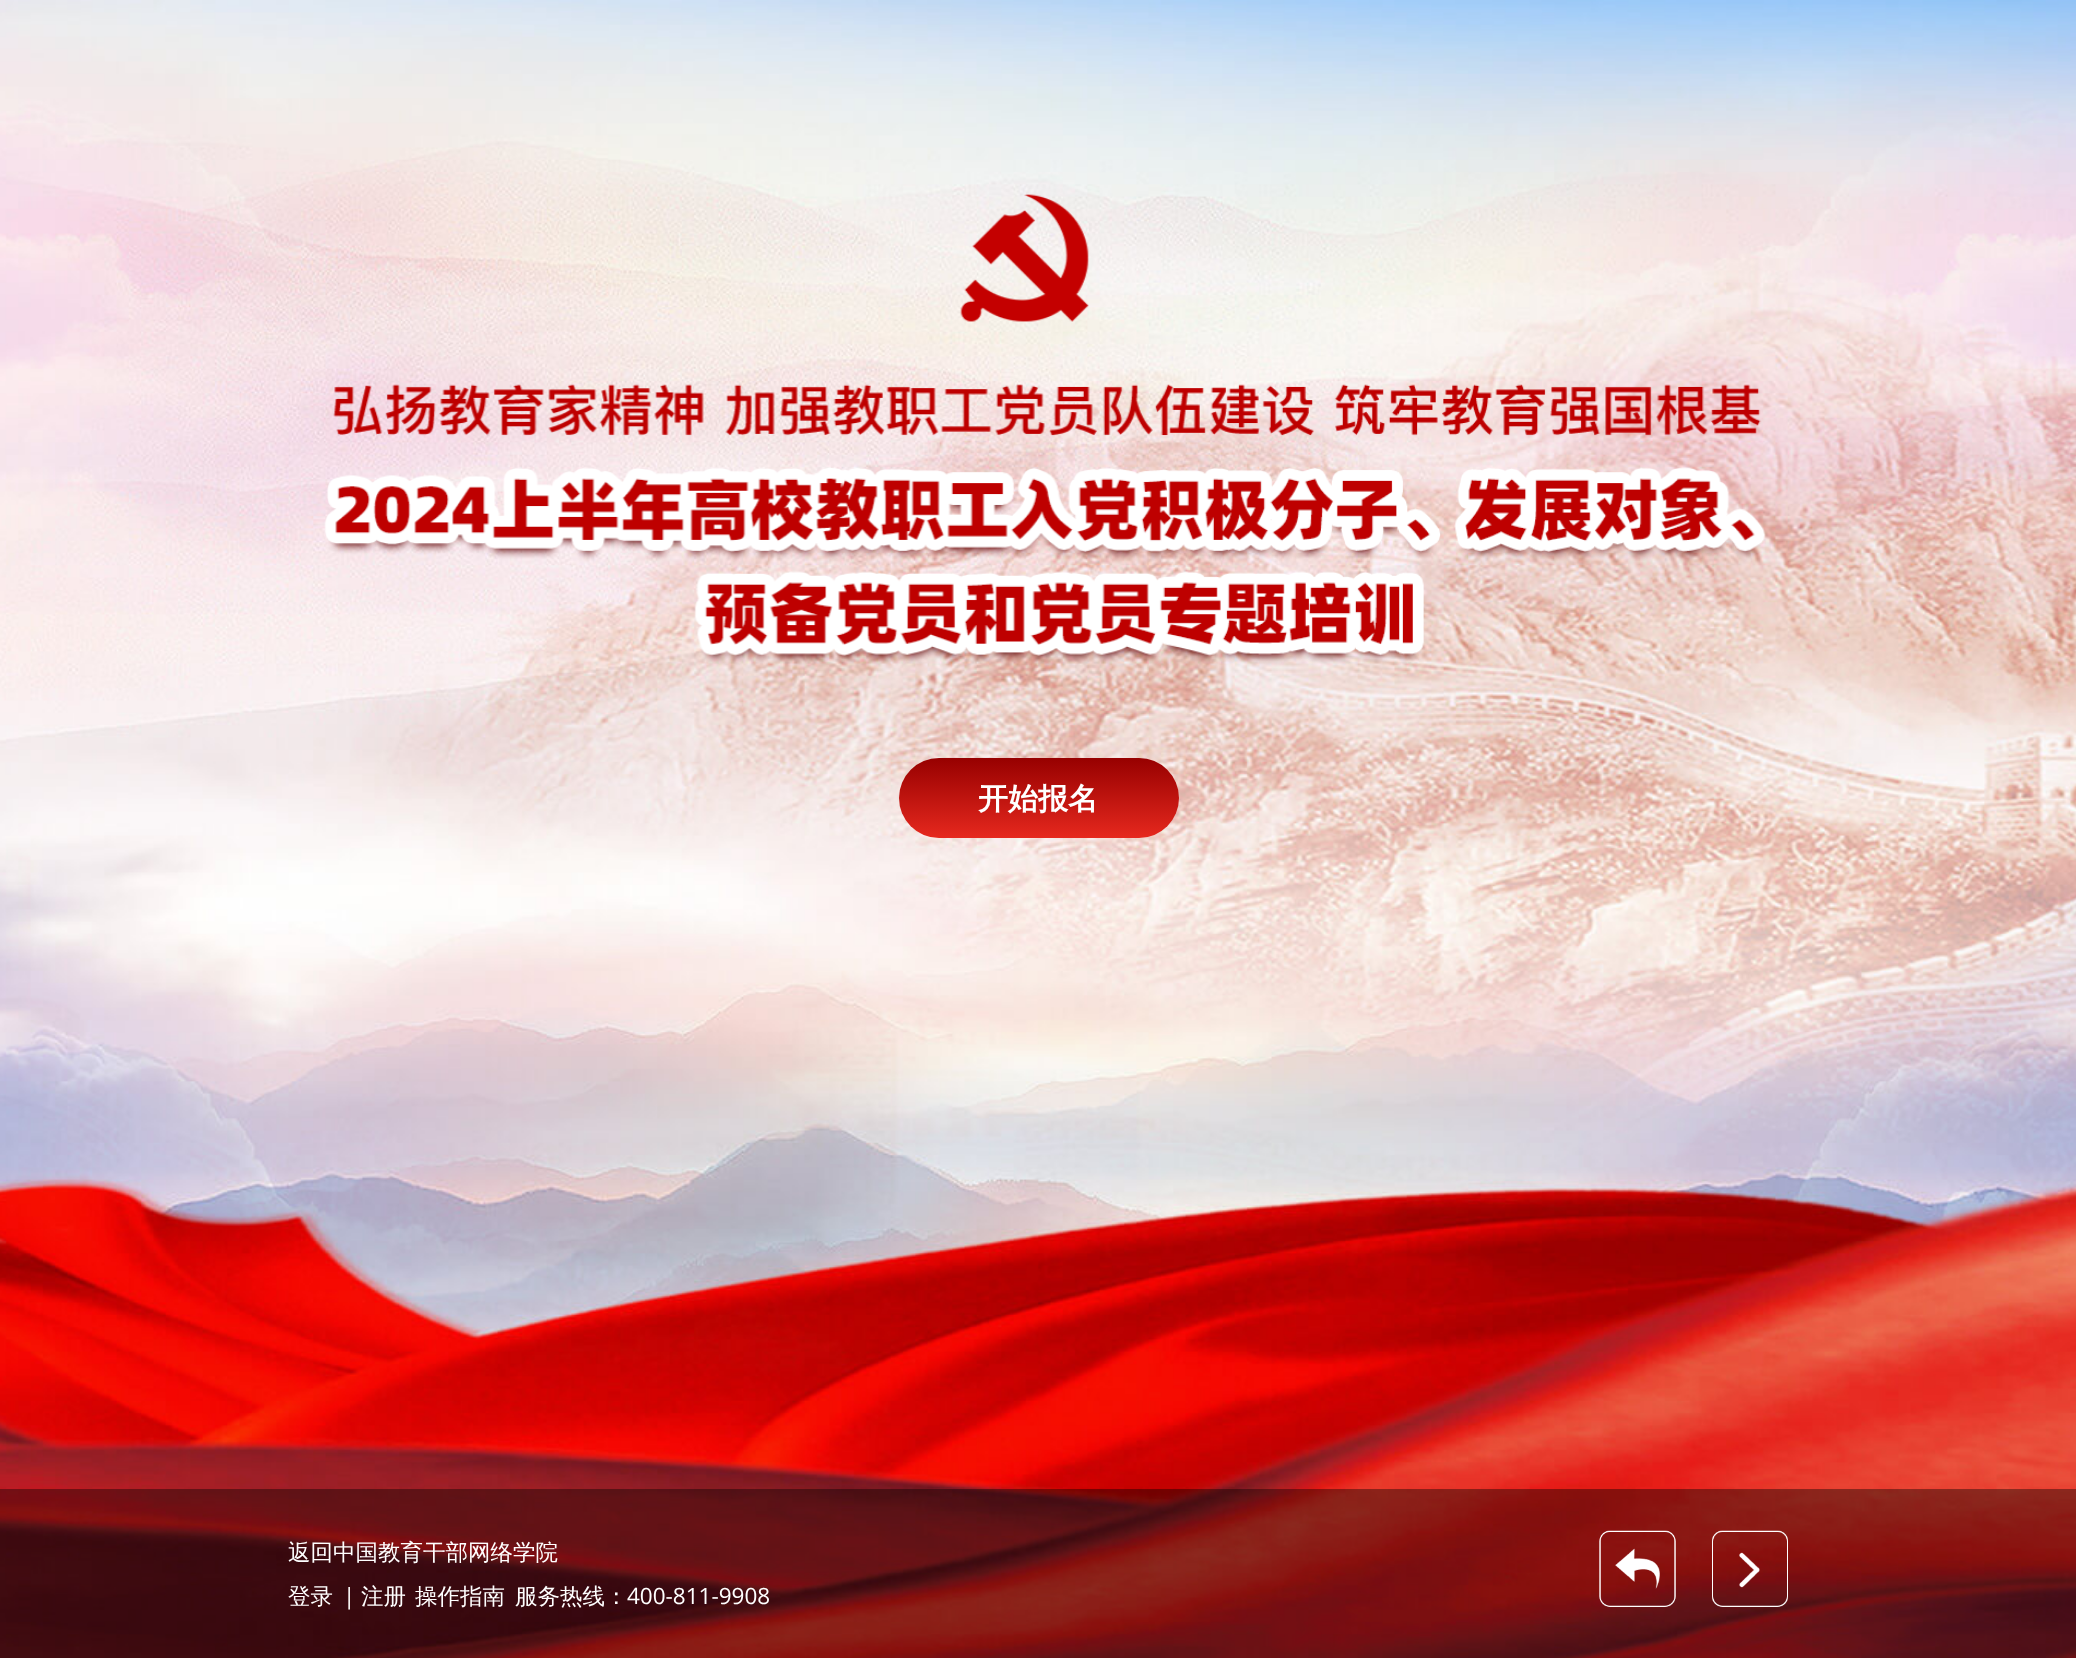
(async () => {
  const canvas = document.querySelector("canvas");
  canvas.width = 2076;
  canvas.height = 1658;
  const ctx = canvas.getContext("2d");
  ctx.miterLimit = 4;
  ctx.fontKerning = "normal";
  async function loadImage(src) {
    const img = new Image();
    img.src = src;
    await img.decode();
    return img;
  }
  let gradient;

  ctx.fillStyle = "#ffffff";
  ctx.fillRect(0, 0, 2076, 1658);
  ctx.drawImage(await loadImage("img/1.png"), 0, 0, 2076, 1658);
  ctx.drawImage(await loadImage("img/2.png"), 324, 194, 1442, 470);
  gradient = ctx.createLinearGradient(1039, 758, 1039, 838);
  gradient.addColorStop(0, "#970000");
  gradient.addColorStop(1, "#e6281e");
  ctx.fillStyle = gradient;
  ctx.beginPath();
  ctx.roundRect(899, 758, 280, 80, 40);
  ctx.fill();
  ctx.fillStyle = "rgba(0, 0, 0, 0.4)";
  ctx.fillRect(0, 1489, 2076, 169);
  ctx.drawImage(await loadImage("img/3.png"), 1599, 1530, 77, 77);
  ctx.drawImage(await loadImage("img/4.png"), 1712, 1530, 76, 77);
  ctx.font = "bold 30px WenQuanYi Zen Hei";
  ctx.fillStyle = "#ffffff";
  ctx.fillText("开始报名", 978, 809);
  ctx.font = "500 22.5px WenQuanYi Zen Hei";
  ctx.fillText("返回中国教育干部网络学院", 288, 1560);
  ctx.fillText("登录", 288, 1604);
  ctx.font = "22.5px Open Sans";
  ctx.fillText("|", 343, 1604);
  ctx.font = "500 22.5px WenQuanYi Zen Hei";
  for (const [text, x, y] of [
    ["注册", 361, 1604],
    ["操作指南", 415, 1604],
    ["服务热线：", 515, 1604],
  ]) {
    ctx.fillText(text, x, y);
  }
  ctx.font = "22.5px Open Sans";
  ctx.fillText("400-811-9908", 627, 1604);
})();
